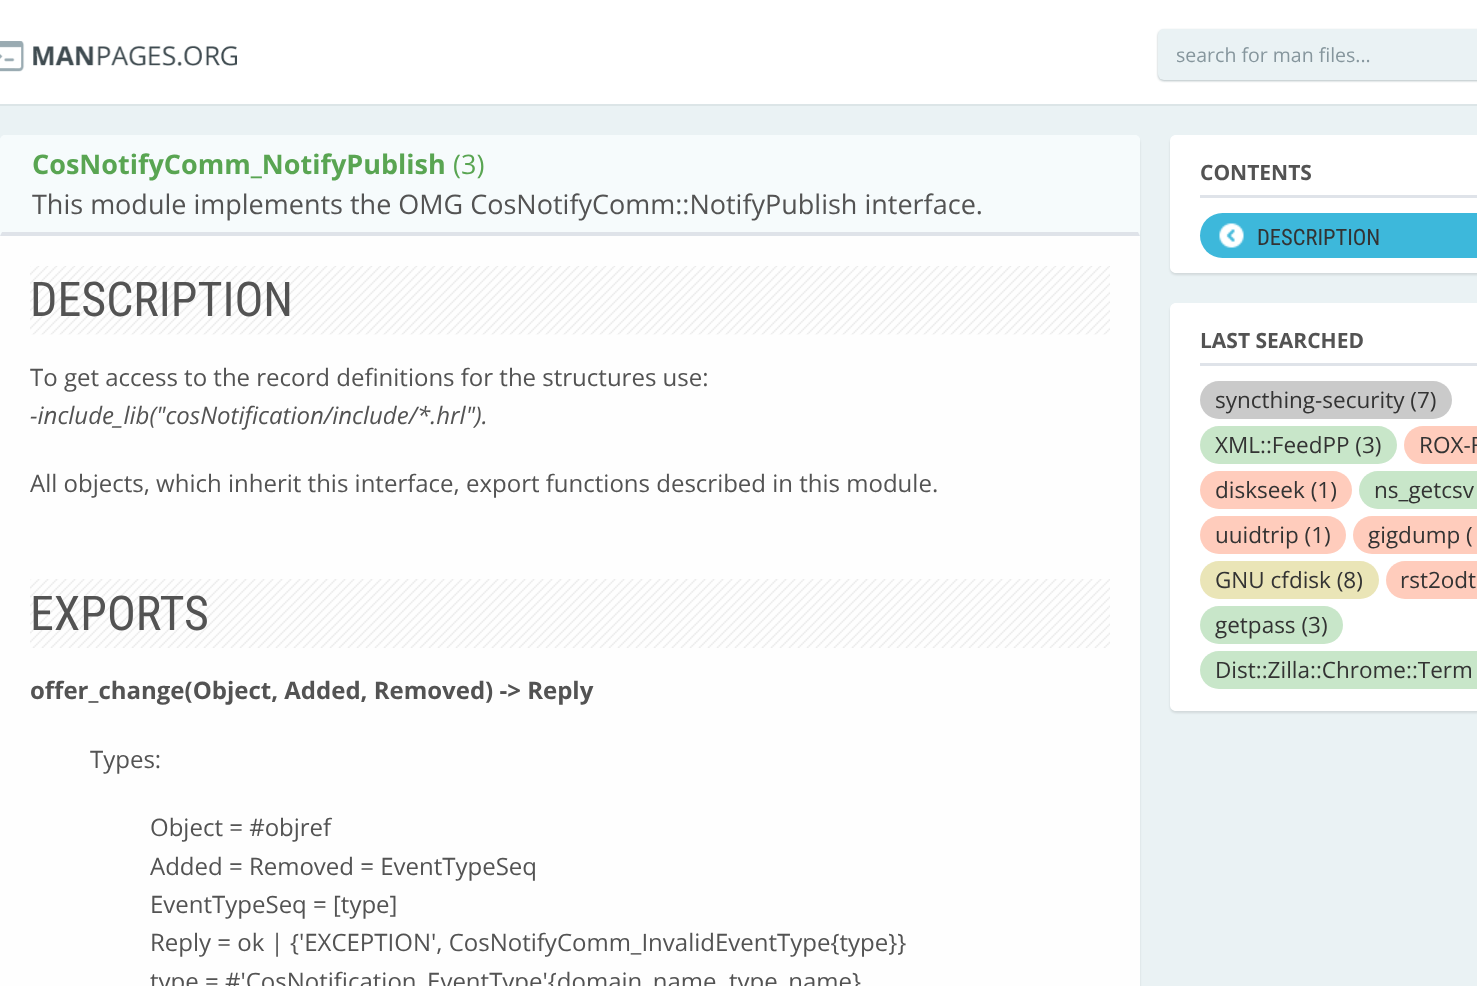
(async () => {
  const canvas = document.querySelector("canvas");
  canvas.width = 1477;
  canvas.height = 986;
  const ctx = canvas.getContext("2d");
  ctx.miterLimit = 4;
  ctx.fontKerning = "normal";
  async function loadImage(src) {
    const img = new Image();
    img.src = src;
    await img.decode();
    return img;
  }
  let path;

  ctx.fillStyle = "#eaf2f4";
  ctx.fillRect(0, 0, 1477, 986);
  ctx.fillStyle = "#ffffff";
  ctx.fillRect(0, 0, 1477, 104);
  ctx.fillStyle = "#dce5e7";
  ctx.fillRect(0, 104, 1477, 2);
  ctx.drawImage(await loadImage("img/1.png"), 0, 41, 237, 31);
  ctx.fillStyle = "rgba(6, 47, 55, 0.3)";
  ctx.filter = "blur(1px)";
  ctx.beginPath();
  ctx.roundRect(1158, 30, 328, 51, 6);
  ctx.fill();
  ctx.filter = "none";
  ctx.fillStyle = "#eaf2f4";
  ctx.beginPath();
  ctx.roundRect(1158, 29, 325, 51, 6);
  ctx.fill();
  ctx.fillStyle = "rgba(0, 0, 0, 0.1)";
  ctx.filter = "blur(1px)";
  ctx.beginPath();
  ctx.roundRect(0, 137, 1140, 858, 6);
  ctx.fill();
  ctx.filter = "none";
  ctx.fillStyle = "#fefefe";
  path = new Path2D("M6 135H1134C1137.5 135 1140 137.5 1140 141V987H0V141C0 137.5 2.5 135 6 135Z");
  ctx.fill(path);
  ctx.fillStyle = "#f6fbfc";
  ctx.beginPath();
  ctx.roundRect(0, 135, 1140, 101, [5, 5, 0, 0]);
  ctx.fill();
  ctx.fillStyle = "#dfe3e9";
  path = new Path2D("M1140 236H0L2 232H1138Z");
  ctx.fill(path);
  ctx.drawImage(await loadImage("img/2.png"), 30, 266, 1080, 69);
  ctx.drawImage(await loadImage("img/3.png"), 30, 579, 1080, 69);
  ctx.fillStyle = "rgba(0, 0, 0, 0.1)";
  ctx.filter = "blur(1px)";
  ctx.beginPath();
  ctx.roundRect(1170, 137, 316, 138, 6);
  ctx.fill();
  ctx.filter = "none";
  ctx.fillStyle = "#ffffff";
  path = new Path2D("M1176 135H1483V273H1176C1172.5 273 1170 270.5 1170 267V141C1170 137.5 1172.5 135 1176 135Z");
  ctx.fill(path);
  ctx.fillStyle = "#dfe3e9";
  ctx.fillRect(1200, 195, 277, 3);
  ctx.fillStyle = "#3db8db";
  ctx.beginPath();
  ctx.roundRect(1200, 213, 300, 45, 22.5);
  ctx.fill();
  ctx.drawImage(await loadImage("img/4.png"), 1219, 223, 25, 25);
  ctx.fillStyle = "rgba(0, 0, 0, 0.1)";
  ctx.filter = "blur(1px)";
  ctx.beginPath();
  ctx.roundRect(1170, 305, 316, 408, 6);
  ctx.fill();
  ctx.filter = "none";
  ctx.fillStyle = "#ffffff";
  path = new Path2D("M1176 303H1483V711H1176C1172.5 711 1170 708.5 1170 705V309C1170 305.5 1172.5 303 1176 303Z");
  ctx.fill(path);
  ctx.fillStyle = "#dfe3e9";
  ctx.fillRect(1200, 363, 277, 3);
  ctx.fillStyle = "#cacaca";
  ctx.beginPath();
  ctx.roundRect(1200, 381, 252, 38, 19);
  ctx.fill();
  ctx.fillStyle = "#c8e6c9";
  ctx.beginPath();
  ctx.roundRect(1200, 426, 197, 38, 19);
  ctx.fill();
  ctx.fillStyle = "#ffccbc";
  ctx.beginPath();
  ctx.roundRect(1404, 426, 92, 38, 19);
  ctx.fill();
  ctx.beginPath();
  ctx.roundRect(1200, 471, 152, 38, 19);
  ctx.fill();
  ctx.fillStyle = "#c8e6c9";
  ctx.beginPath();
  ctx.roundRect(1359, 471, 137, 38, 19);
  ctx.fill();
  ctx.fillStyle = "#ffccbc";
  ctx.beginPath();
  ctx.roundRect(1200, 516, 146, 38, 19);
  ctx.fill();
  ctx.beginPath();
  ctx.roundRect(1353, 516, 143, 38, 19);
  ctx.fill();
  ctx.fillStyle = "#eae5b7";
  ctx.beginPath();
  ctx.roundRect(1200, 561, 179, 38, 19);
  ctx.fill();
  ctx.fillStyle = "#ffccbc";
  ctx.beginPath();
  ctx.roundRect(1386, 561, 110, 38, 19);
  ctx.fill();
  ctx.fillStyle = "#c8e6c9";
  ctx.beginPath();
  ctx.roundRect(1200, 606, 143, 38, 19);
  ctx.fill();
  ctx.beginPath();
  ctx.roundRect(1200, 651, 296, 38, 19);
  ctx.fill();
  ctx.font = "19.5px Open Sans";
  ctx.fillStyle = "#86969d";
  ctx.fillText("search for man files...", 1176, 62);
  ctx.font = "bold 27px Open Sans";
  ctx.fillStyle = "#59a552";
  ctx.fillText("CosNotifyComm_NotifyPublish", 32, 174);
  ctx.font = "27px Open Sans";
  ctx.fillText("(3)", 453, 174);
  ctx.fillStyle = "#535353";
  ctx.fillText("This module implements the OMG CosNotifyComm::NotifyPublish interface.", 32, 214);
  ctx.font = "48px Roboto Condensed";
  ctx.fillText("DESCRIPTION", 30, 316);
  ctx.font = "24px Open Sans";
  ctx.fillText("To get access to the record definitions for the structures use:", 30, 386);
  ctx.font = "italic 24px Open Sans";
  ctx.fillText("-include_lib(\"cosNotification/include/*.hrl\").", 30, 424);
  ctx.font = "24px Open Sans";
  ctx.fillText("All objects, which inherit this interface, export functions described in this module.", 30, 492);
  ctx.font = "48px Roboto Condensed";
  ctx.fillText("EXPORTS", 30, 630);
  ctx.font = "bold 24px Open Sans";
  ctx.fillText("offer_change(Object, Added, Removed) -> Reply", 30, 699);
  ctx.font = "24px Open Sans";
  for (const [text, x, y] of [
    ["Types:", 90, 768],
    ["Object = #objref", 150, 836],
    ["Added = Removed = EventTypeSeq", 150, 875],
    ["EventTypeSeq = [type]", 150, 913],
    ["Reply = ok | {'EXCEPTION', CosNotifyComm_InvalidEventType{type}}", 150, 951],
    ["type = #'CosNotification_EventType'{domain_name, type_name}", 150, 990],
  ]) {
    ctx.fillText(text, x, y);
  }
  ctx.font = "bold 21px Open Sans";
  ctx.fillText("CONTENTS", 1200, 180);
  ctx.font = "22.5px Roboto Condensed";
  ctx.fillStyle = "#333333";
  ctx.fillText("DESCRIPTION", 1257, 245);
  ctx.font = "bold 21px Open Sans";
  ctx.fillStyle = "#535353";
  ctx.fillText("LAST SEARCHED", 1200, 348);
  ctx.font = "22.5px Open Sans";
  ctx.fillStyle = "#333333";
  for (const [text, x, y] of [
    ["syncthing-security (7)", 1215, 408],
    ["XML::FeedPP (3)", 1215, 453],
    ["ROX-F", 1419, 453],
    ["diskseek (1)", 1215, 498],
    ["ns_getcsv", 1374, 498],
    ["uuidtrip (1)", 1215, 543],
    ["gigdump (", 1368, 543],
    ["GNU cfdisk (8)", 1215, 588],
    ["rst2odt", 1400, 588],
    ["getpass (3)", 1215, 633],
    ["Dist::Zilla::Chrome::Term", 1215, 678],
  ]) {
    ctx.fillText(text, x, y);
  }
})();
